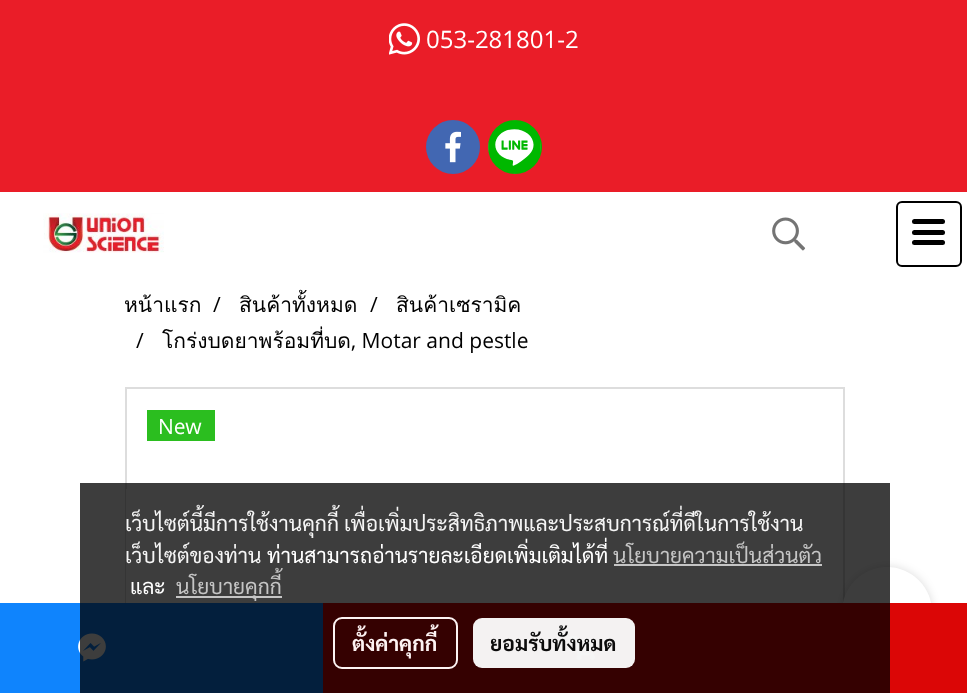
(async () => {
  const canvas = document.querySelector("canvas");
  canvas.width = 967;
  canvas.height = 693;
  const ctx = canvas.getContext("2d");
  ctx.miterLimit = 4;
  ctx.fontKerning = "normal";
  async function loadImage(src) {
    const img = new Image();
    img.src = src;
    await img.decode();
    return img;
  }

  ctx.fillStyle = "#ffffff";
  ctx.fillRect(0, 0, 967, 693);
  ctx.fillStyle = "#ea1d28";
  ctx.fillRect(0, 0, 967, 192);
  ctx.drawImage(await loadImage("img/1.png"), 389, 23, 31, 32);
  ctx.fillStyle = "#4267b2";
  ctx.beginPath();
  ctx.arc(453, 147, 27, 0, Math.PI * 2);
  ctx.fill();
  ctx.drawImage(await loadImage("img/2.png"), 445, 131, 16, 32);
  ctx.fillStyle = "#00b800";
  ctx.beginPath();
  ctx.arc(515, 147, 27, 0, Math.PI * 2);
  ctx.fill();
  ctx.drawImage(await loadImage("img/3.png"), 488, 120, 53, 54);
  ctx.drawImage(await loadImage("img/4.png"), 43, 213, 121, 40);
  ctx.drawImage(await loadImage("img/5.png"), 772, 217, 34, 34);
  ctx.beginPath();
  ctx.roundRect(897, 202, 64, 64, 5);
  ctx.strokeStyle = "#000000";
  ctx.lineWidth = 2;
  ctx.stroke();
  ctx.fillStyle = "#000000";
  ctx.beginPath();
  ctx.roundRect(912, 230, 33, 5, 2.5);
  ctx.fill();
  ctx.beginPath();
  ctx.roundRect(912, 219, 33, 5, 2.5);
  ctx.fill();
  ctx.beginPath();
  ctx.roundRect(912, 240, 33, 5, 2.5);
  ctx.fill();
  ctx.strokeStyle = "#dddddd";
  ctx.strokeRect(126, 388, 718, 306);
  for (const [x, y, w, h, color] of [
    [126, 489, 1, 114, "#ffffff"],
    [147, 410, 68, 31, "#2bbe1f"],
    [0, 603, 323, 90, "#0f84fd"],
  ]) {
    ctx.fillStyle = color;
    ctx.fillRect(x, y, w, h);
  }
  ctx.drawImage(await loadImage("img/6.png"), 78, 633, 28, 29);
  ctx.fillStyle = "rgba(0, 0, 0, 0.14)";
  ctx.filter = "blur(5px)";
  ctx.beginPath();
  ctx.roundRect(842, 567, 90, 90, 45);
  ctx.fill();
  ctx.filter = "none";
  ctx.fillStyle = "#ffffff";
  ctx.beginPath();
  ctx.arc(887, 612, 45, 0, Math.PI * 2);
  ctx.fill();
  ctx.fillStyle = "#db0606";
  ctx.fillRect(323, 603, 644, 90);
  ctx.drawImage(await loadImage("img/7.png"), 570, 636, 27, 24);
  for (const [x, y, w, h, color] of [
    [80, 483, 810, 210, "rgba(0, 0, 0, 0.76)"],
    [614, 564, 208, 2, "#c5c5c5"],
    [176, 596, 106, 2, "#c5c5c5"],
  ]) {
    ctx.fillStyle = color;
    ctx.fillRect(x, y, w, h);
  }
  ctx.beginPath();
  ctx.roundRect(334, 618, 123, 50, 8);
  ctx.strokeStyle = "#fdf3f3";
  ctx.stroke();
  ctx.fillStyle = "rgba(255, 255, 255, 0.95)";
  ctx.beginPath();
  ctx.roundRect(473, 618, 162, 50, 9);
  ctx.fill();
  ctx.font = "24px Open Sans";
  ctx.fillStyle = "#ffffff";
  ctx.fillText("053-281801-2", 426, 48);
  ctx.font = "21px Loma";
  ctx.fillStyle = "#000000";
  ctx.fillText("หน้าแรก", 124, 312);
  ctx.font = "21px Open Sans";
  ctx.fillText("/", 213, 312);
  ctx.font = "21px Loma";
  ctx.fillText("สินค้าทั้งหมด", 239, 312);
  ctx.font = "21px Open Sans";
  ctx.fillText("/", 370, 312);
  ctx.font = "21px Loma";
  ctx.fillText("สินค้าเซรามิค", 396, 312);
  ctx.font = "21px Open Sans";
  ctx.fillText("/", 136, 348);
  ctx.font = "21px Loma";
  ctx.fillText("โกร่งบดยาพร้อมที่บด", 162, 348);
  ctx.font = "21px Open Sans";
  ctx.fillText(", Motar and pestle", 351, 348);
  ctx.fillStyle = "#ffffff";
  ctx.fillText("New", 158, 434);
  ctx.font = "21px Sarabun";
  ctx.fillStyle = "#f5f5f5";
  ctx.fillText("เว็บไซต์นี้มีการใช้งานคุกกี้ เพื่อเพิ่มประสิทธิภาพและประสบการณ์ที่ดีในการใช้งาน", 125, 531);
  ctx.fillText("เว็บไซต์ของท่าน", 125, 563);
  ctx.fillStyle = "#ffffff";
  ctx.fillText("ท่านสามารถอ่านรายละเอียดเพิ่มเติมได้ที่", 267, 563);
  ctx.fillStyle = "#c5c5c5";
  ctx.fillText("นโยบายความเป็นส่วนตัว", 613, 563);
  ctx.fillStyle = "#ffffff";
  ctx.fillText("และ", 130, 594);
  ctx.fillStyle = "#c5c5c5";
  ctx.fillText("นโยบายคุกกี้", 176, 594);
  ctx.font = "bold 21px Sarabun";
  ctx.fillStyle = "#fdf3f3";
  ctx.fillText("ตั้งค่าคุกกี้", 352, 651);
  ctx.fillStyle = "#0c0c0c";
  ctx.fillText("ยอมรับทั้งหมด", 490, 651);
})();
